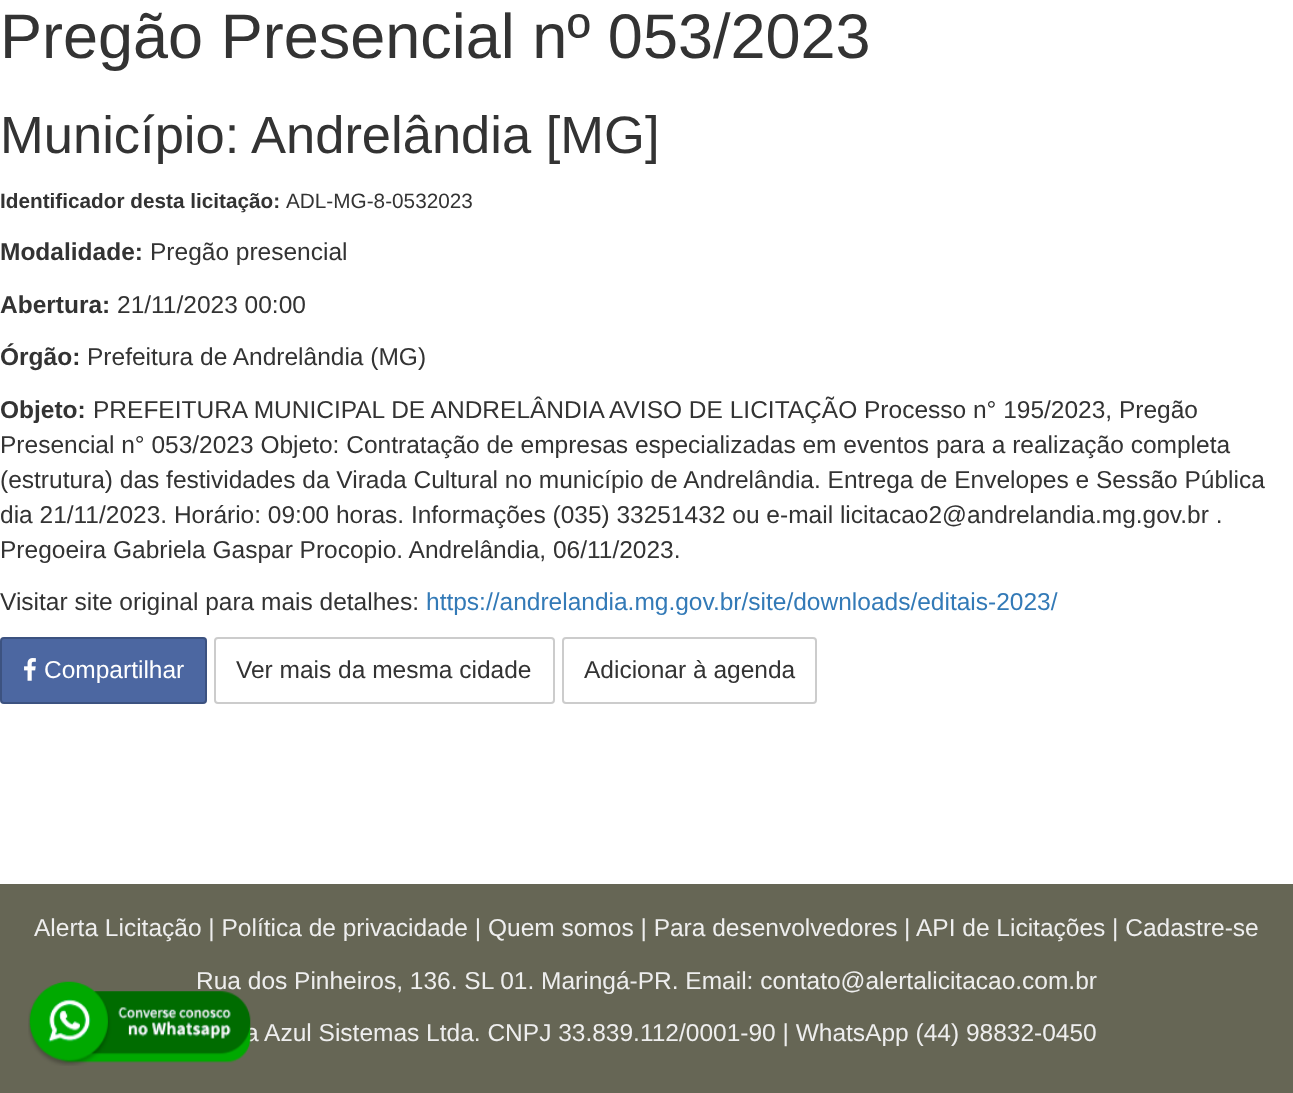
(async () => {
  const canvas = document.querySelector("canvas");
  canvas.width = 1293;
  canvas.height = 1093;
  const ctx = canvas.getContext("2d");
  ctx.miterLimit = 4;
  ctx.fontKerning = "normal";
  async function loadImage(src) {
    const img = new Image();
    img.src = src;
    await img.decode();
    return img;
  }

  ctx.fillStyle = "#ffffff";
  ctx.fillRect(0, 0, 1293, 1093);
  ctx.fillStyle = "#4c67a1";
  ctx.beginPath();
  ctx.roundRect(0, 637, 207, 67, 4);
  ctx.fill();
  ctx.beginPath();
  ctx.roundRect(1, 638, 205, 65, 3);
  ctx.strokeStyle = "rgba(0, 0, 0, 0.2)";
  ctx.lineWidth = 2;
  ctx.stroke();
  ctx.drawImage(await loadImage("img/1.png"), 24, 658, 12, 23);
  ctx.beginPath();
  ctx.roundRect(215, 638, 339, 65, 3);
  ctx.strokeStyle = "#cccccc";
  ctx.stroke();
  ctx.beginPath();
  ctx.roundRect(563, 638, 253, 65, 3);
  ctx.stroke();
  ctx.fillStyle = "#666655";
  ctx.fillRect(0, 884, 1293, 209);
  ctx.font = "63px Liberation Sans";
  ctx.fillStyle = "#333333";
  ctx.fillText("Pregão Presencial nº 053/2023", 0, 58);
  ctx.font = "52.5px Liberation Sans";
  ctx.fillText("Município: Andrelândia [MG]", 0, 153);
  ctx.font = "bold 20.75px Liberation Sans";
  ctx.fillText("Identificador desta licitação:", 0, 208);
  ctx.font = "20.75px Liberation Sans";
  ctx.fillText("ADL-MG-8-0532023", 286, 208);
  ctx.font = "bold 24.5px Liberation Sans";
  ctx.fillText("Modalidade:", 0, 260);
  ctx.font = "24.5px Liberation Sans";
  ctx.fillText("Pregão presencial", 150, 260);
  ctx.font = "bold 24.5px Liberation Sans";
  ctx.fillText("Abertura:", 0, 313);
  ctx.font = "24.5px Liberation Sans";
  ctx.fillText("21/11/2023 00:00", 117, 313);
  ctx.font = "bold 24.5px Liberation Sans";
  ctx.fillText("Órgão:", 0, 365);
  ctx.font = "24.5px Liberation Sans";
  ctx.fillText("Prefeitura de Andrelândia (MG)", 87, 365);
  ctx.font = "bold 24.5px Liberation Sans";
  ctx.fillText("Objeto:", 0, 418);
  ctx.font = "24.5px Liberation Sans";
  for (const [text, x, y] of [
    ["PREFEITURA MUNICIPAL DE ANDRELÂNDIA AVISO DE LICITAÇÃO Processo n° 195/2023, Pregão", 93, 418],
    ["Presencial n° 053/2023 Objeto: Contratação de empresas especializadas em eventos para a realização completa", 0, 453],
    ["(estrutura) das festividades da Virada Cultural no município de Andrelândia. Entrega de Envelopes e Sessão Pública", 0, 488],
    ["dia 21/11/2023. Horário: 09:00 horas. Informações (035) 33251432 ou e-mail licitacao2@andrelandia.mg.gov.br .", 0, 523],
    ["Pregoeira Gabriela Gaspar Procopio. Andrelândia, 06/11/2023.", 0, 558],
    ["Visitar site original para mais detalhes:", 0, 610],
  ]) {
    ctx.fillText(text, x, y);
  }
  ctx.fillStyle = "#337ab7";
  ctx.fillText("https://andrelandia.mg.gov.br/site/downloads/editais-2023/", 426, 610);
  ctx.fillStyle = "#ffffff";
  ctx.fillText("Compartilhar", 44, 678);
  ctx.fillStyle = "#333333";
  ctx.fillText("Ver mais da mesma cidade", 236, 678);
  ctx.fillText("Adicionar à agenda", 584, 678);
  ctx.fillStyle = "#eeeeee";
  for (const [text, x, y] of [
    ["Alerta Licitação | Política de privacidade | Quem somos | Para desenvolvedores", 34, 936],
    ["|", 904, 936],
    ["API de Licitações | Cadastre-se", 916, 936],
    ["Rua dos Pinheiros, 136. SL 01. Maringá-PR. Email: contato@alertalicitacao.com.br", 196, 989],
    ["a Azul Sistemas Ltda. CNPJ 33.839.112/0001-90 | WhatsApp (44) 98832-0450", 245, 1041],
  ]) {
    ctx.fillText(text, x, y);
  }
  ctx.drawImage(await loadImage("img/2.png"), 28, 981, 223, 85);
})();
